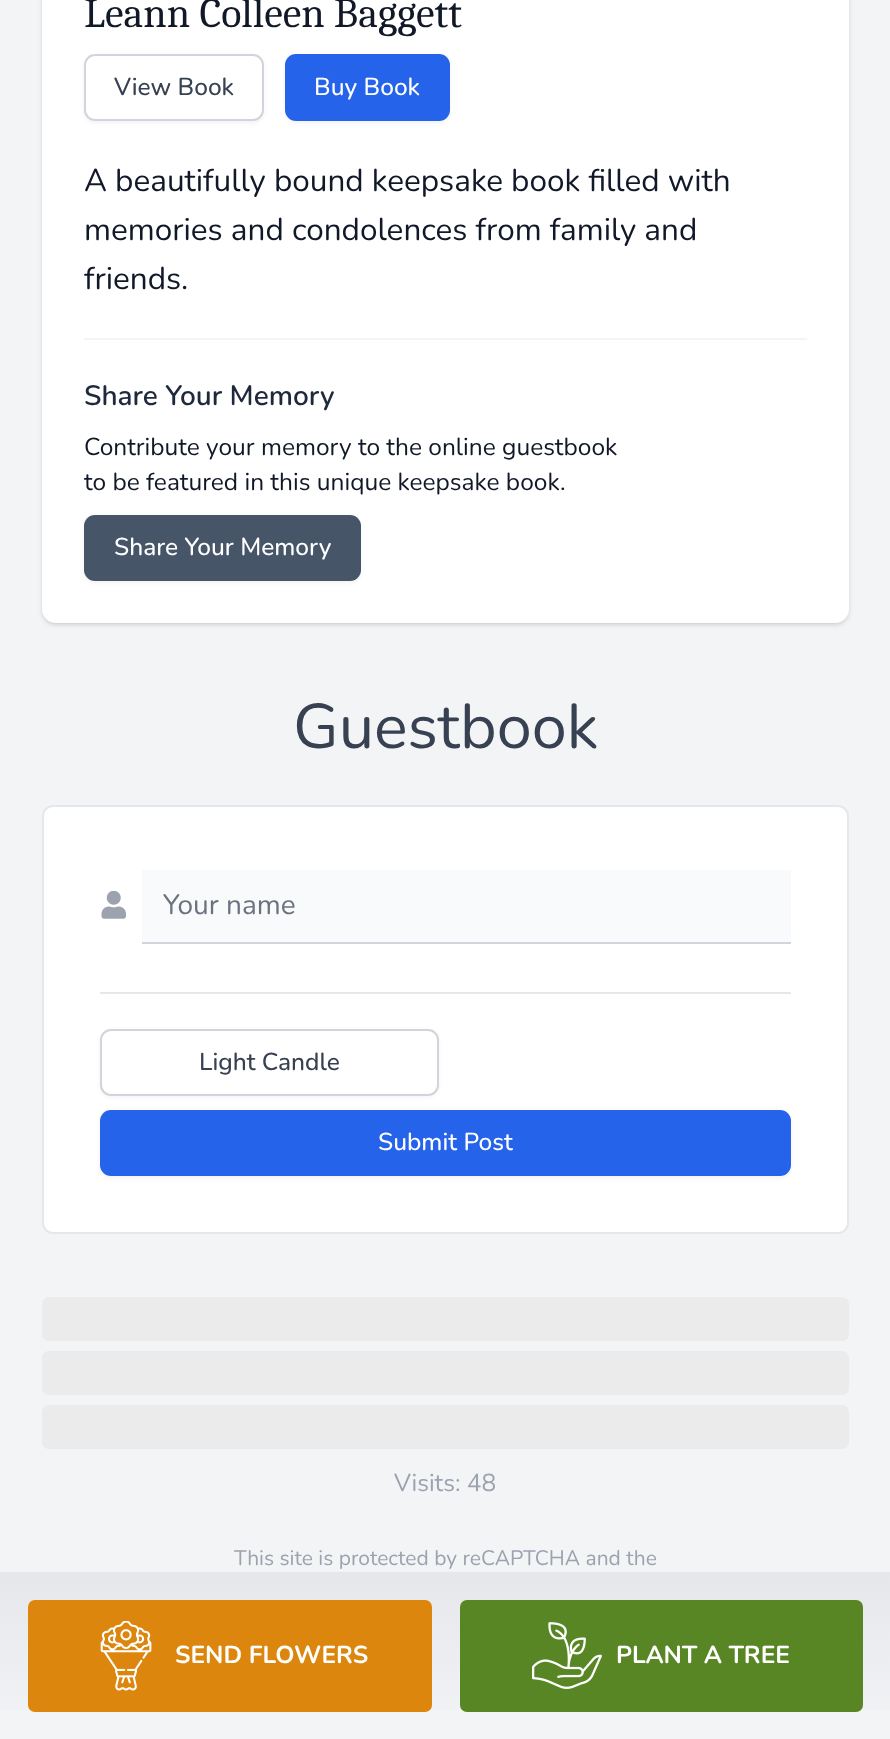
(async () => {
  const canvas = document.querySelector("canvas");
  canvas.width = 890;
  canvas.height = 1739;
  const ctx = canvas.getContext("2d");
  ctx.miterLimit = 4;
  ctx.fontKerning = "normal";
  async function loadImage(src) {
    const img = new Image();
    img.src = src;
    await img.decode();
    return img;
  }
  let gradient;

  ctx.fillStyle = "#f3f4f6";
  ctx.fillRect(0, 0, 890, 1739);
  ctx.fillStyle = "rgba(0, 0, 0, 0.1)";
  ctx.filter = "blur(2px)";
  ctx.beginPath();
  ctx.roundRect(44, -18, 803, 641, 12);
  ctx.fill();
  ctx.filter = "none";
  ctx.filter = "blur(2.5px)";
  ctx.beginPath();
  ctx.roundRect(42, -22, 807, 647, 14);
  ctx.fill();
  ctx.filter = "none";
  ctx.fillStyle = "#ffffff";
  ctx.beginPath();
  ctx.roundRect(42, -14, 807, 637, 14);
  ctx.fill();
  ctx.fillStyle = "rgba(0, 0, 0, 0.05)";
  ctx.filter = "blur(2px)";
  ctx.beginPath();
  ctx.roundRect(84, 56, 180, 67, 11);
  ctx.fill();
  ctx.filter = "none";
  ctx.fillStyle = "#ffffff";
  ctx.beginPath();
  ctx.roundRect(85, 55, 178, 65, 10);
  ctx.fill();
  ctx.strokeStyle = "#d1d5db";
  ctx.lineWidth = 2;
  ctx.stroke();
  ctx.fillStyle = "rgba(0, 0, 0, 0.05)";
  ctx.filter = "blur(2px)";
  ctx.beginPath();
  ctx.roundRect(285, 56, 165, 67, 11);
  ctx.fill();
  ctx.filter = "none";
  ctx.fillStyle = "#2563eb";
  ctx.beginPath();
  ctx.roundRect(285, 54, 165, 67, 11);
  ctx.fill();
  ctx.fillStyle = "#f3f4f6";
  ctx.fillRect(84, 338, 723, 2);
  ctx.fillStyle = "rgba(0, 0, 0, 0.05)";
  ctx.filter = "blur(2px)";
  ctx.beginPath();
  ctx.roundRect(84, 516, 277, 67, 11);
  ctx.fill();
  ctx.filter = "none";
  ctx.fillStyle = "#475569";
  ctx.beginPath();
  ctx.roundRect(84, 515, 277, 66, 11);
  ctx.fill();
  ctx.fillStyle = "#ffffff";
  ctx.beginPath();
  ctx.roundRect(43, 806, 805, 427, 10);
  ctx.fill();
  ctx.strokeStyle = "#e5e7eb";
  ctx.stroke();
  ctx.drawImage(await loadImage("img/1.png"), 101, 891, 25, 28);
  for (const [x, y, w, h, color] of [
    [142, 942, 649, 2, "#d1d5db"],
    [142, 870, 649, 72, "#f9fafb"],
    [100, 992, 691, 2, "#e5e7eb"],
  ]) {
    ctx.fillStyle = color;
    ctx.fillRect(x, y, w, h);
  }
  ctx.fillStyle = "rgba(0, 0, 0, 0.05)";
  ctx.filter = "blur(2px)";
  ctx.beginPath();
  ctx.roundRect(100, 1031, 339, 66, 11);
  ctx.fill();
  ctx.filter = "none";
  ctx.fillStyle = "#ffffff";
  ctx.beginPath();
  ctx.roundRect(101, 1030, 337, 65, 10);
  ctx.fill();
  ctx.strokeStyle = "#d1d5db";
  ctx.stroke();
  ctx.fillStyle = "rgba(0, 0, 0, 0.05)";
  ctx.filter = "blur(2px)";
  ctx.beginPath();
  ctx.roundRect(100, 1111, 691, 67, 11);
  ctx.fill();
  ctx.filter = "none";
  ctx.fillStyle = "#2563eb";
  ctx.beginPath();
  ctx.roundRect(100, 1110, 691, 66, 11);
  ctx.fill();
  ctx.fillStyle = "#ebebeb";
  ctx.beginPath();
  ctx.roundRect(42, 1297, 807, 44, 7);
  ctx.fill();
  ctx.beginPath();
  ctx.roundRect(42, 1351, 807, 44, 7);
  ctx.fill();
  ctx.beginPath();
  ctx.roundRect(42, 1405, 807, 44, 7);
  ctx.fill();
  gradient = ctx.createLinearGradient(445, 1572, 445, 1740);
  gradient.addColorStop(0, "#e5e7eb");
  gradient.addColorStop(1, "#f3f4f6");
  ctx.fillStyle = gradient;
  ctx.fillRect(0, 1572, 890, 138);
  ctx.fillStyle = "#dc860d";
  ctx.beginPath();
  ctx.roundRect(28, 1600, 404, 112, 7);
  ctx.fill();
  ctx.drawImage(await loadImage("img/2.png"), 100, 1621, 52, 70);
  ctx.fillStyle = "#588624";
  ctx.beginPath();
  ctx.roundRect(460, 1600, 403, 112, 7);
  ctx.fill();
  ctx.drawImage(await loadImage("img/3.png"), 532, 1622, 70, 67);
  ctx.font = "42px Caladea";
  ctx.fillStyle = "#111827";
  ctx.fillText("Leann Colleen Baggett", 84, 27);
  ctx.font = "500 24.5px Nunito";
  ctx.fillStyle = "#374151";
  ctx.fillText("View Book", 114, 95);
  ctx.fillStyle = "#ffffff";
  ctx.fillText("Buy Book", 314, 95);
  ctx.font = "31.5px Nunito";
  ctx.fillStyle = "#111827";
  for (const [text, x, y] of [
    ["A beautifully bound keepsake book filled with", 84, 191],
    ["memories and condolences from family and", 84, 240],
    ["friends.", 84, 289],
  ]) {
    ctx.fillText(text, x, y);
  }
  ctx.font = "600 28px Nunito";
  ctx.fillStyle = "#1e293b";
  ctx.fillText("Share Your Memory", 84, 405);
  ctx.font = "24.5px Nunito";
  ctx.fillStyle = "#111827";
  ctx.fillText("Contribute your memory to the online guestbook", 84, 455);
  ctx.fillText("to be featured in this unique keepsake book.", 84, 490);
  ctx.font = "500 24.5px Nunito";
  ctx.fillStyle = "#ffffff";
  ctx.fillText("Share Your Memory", 114, 555);
  ctx.font = "63px Nunito";
  ctx.fillStyle = "#374151";
  ctx.fillText("Guestbook", 293, 748);
  ctx.font = "28px Nunito";
  ctx.fillStyle = "#6b7280";
  ctx.fillText("Your name", 163, 914);
  ctx.font = "500 24.5px Nunito";
  ctx.fillStyle = "#374151";
  ctx.fillText("Light Candle", 199, 1070);
  ctx.fillStyle = "#ffffff";
  ctx.fillText("Submit Post", 378, 1150);
  ctx.font = "24.5px Nunito";
  ctx.fillStyle = "#9ca3af";
  ctx.fillText("Visits: 48", 394, 1491);
  ctx.font = "21px Nunito";
  ctx.fillText("This site is protected by reCAPTCHA and the", 234, 1565);
  ctx.font = "bold 24.5px Nunito";
  ctx.fillStyle = "#ffffff";
  ctx.fillText("SEND FLOWERS", 175, 1663);
  ctx.fillText("PLANT A TREE", 616, 1663);
})();
